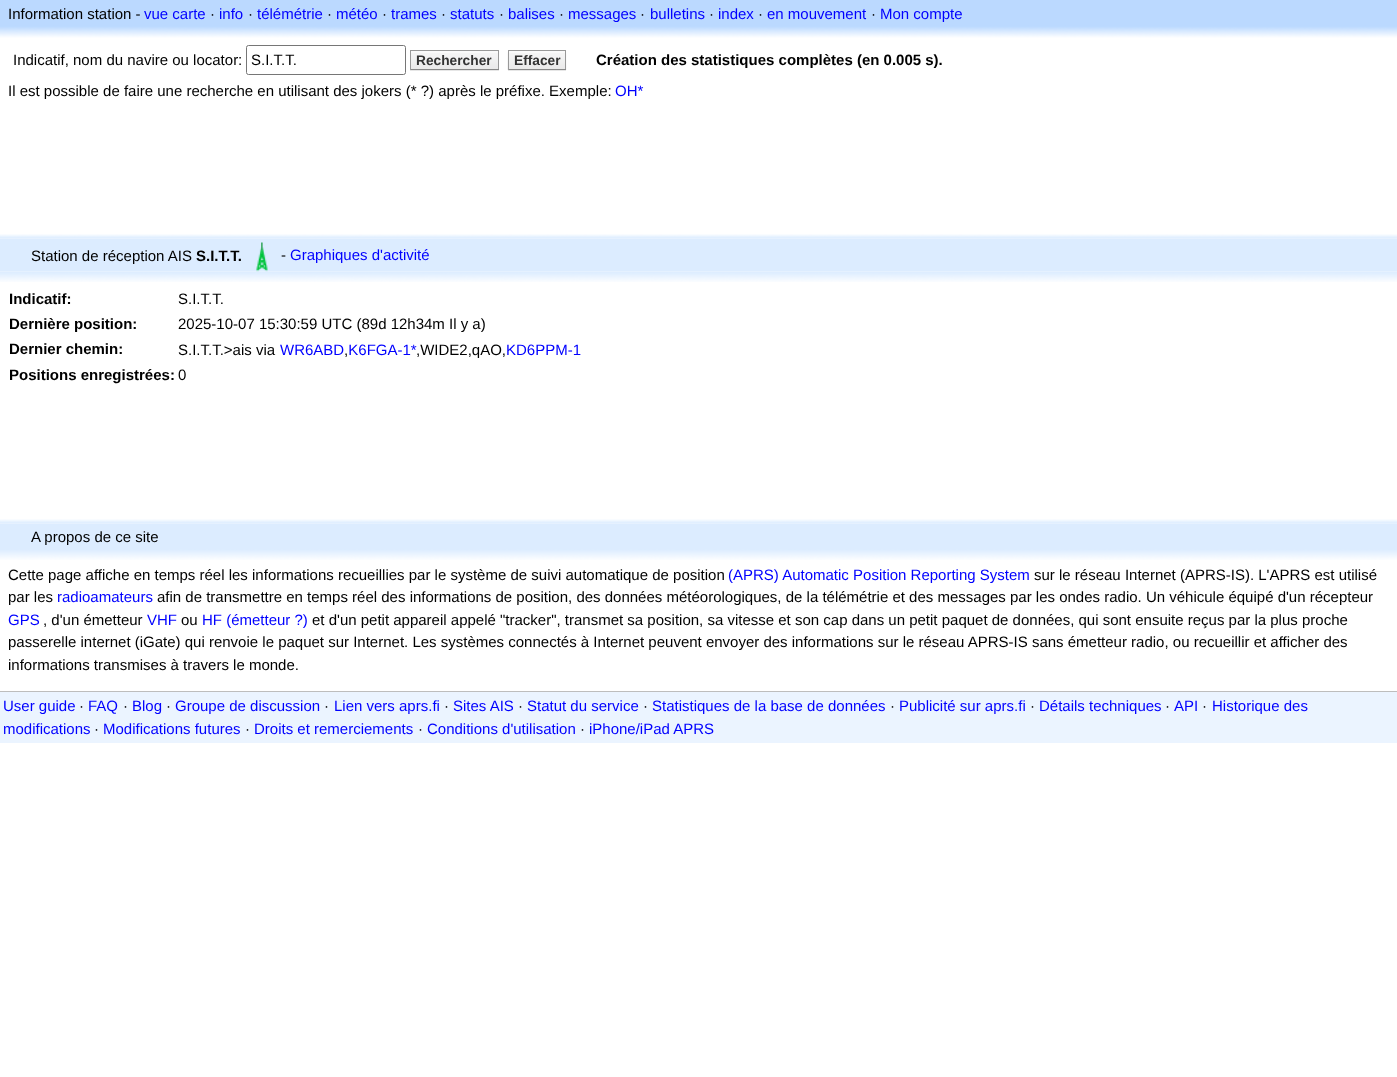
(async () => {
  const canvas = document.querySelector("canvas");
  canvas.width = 1397;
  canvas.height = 1077;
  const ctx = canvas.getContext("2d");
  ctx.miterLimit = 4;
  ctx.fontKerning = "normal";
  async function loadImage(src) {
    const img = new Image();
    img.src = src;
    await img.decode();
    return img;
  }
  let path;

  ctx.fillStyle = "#ffffff";
  ctx.fillRect(0, 0, 1397, 1077);
  ctx.fillStyle = "#bbd9ff";
  ctx.fillRect(0, 0, 1397, 25);
  ctx.drawImage(await loadImage("img/1.png"), 0, 25, 1397, 13);
  ctx.beginPath();
  ctx.roundRect(246.5, 45.5, 159, 29, 2);
  ctx.strokeStyle = "#767676";
  ctx.stroke();
  ctx.fillStyle = "#e6e6e6";
  path = new Path2D("M410 70V71H499V51V70Z");
  ctx.fill(path);
  ctx.fillStyle = "#eeeeee";
  ctx.fillRect(411, 51, 87, 1);
  ctx.drawImage(await loadImage("img/2.png"), 411, 51, 87, 18);
  for (const [x, y, w, h, color] of [
    [410, 50, 89, 1, "#999999"],
    [498, 50, 1, 20, "#999999"],
    [410, 69, 89, 1, "#888888"],
    [410, 50, 1, 20, "#999999"],
    [508, 70, 58, 1, "#e6e6e6"],
    [509, 51, 56, 1, "#eeeeee"],
  ]) {
    ctx.fillStyle = color;
    ctx.fillRect(x, y, w, h);
  }
  ctx.drawImage(await loadImage("img/3.png"), 507, 51, 60, 19);
  for (const [x, y, w, h, color] of [
    [508, 50, 58, 1, "#999999"],
    [565, 50, 1, 20, "#999999"],
    [508, 69, 58, 1, "#888888"],
    [508, 50, 1, 20, "#999999"],
  ]) {
    ctx.fillStyle = color;
    ctx.fillRect(x, y, w, h);
  }
  ctx.drawImage(await loadImage("img/4.png"), 0, 234, 1397, 5);
  ctx.fillStyle = "#dcecff";
  ctx.fillRect(0, 239, 1397, 32);
  ctx.drawImage(await loadImage("img/6.png"), 0, 271, 1397, 11);
  ctx.drawImage(await loadImage("img/5.png"), 256, 242, 12, 30);
  ctx.drawImage(await loadImage("img/7.png"), 0, 519, 1397, 5);
  ctx.fillRect(0, 524, 1397, 25);
  ctx.drawImage(await loadImage("img/8.png"), 0, 549, 1397, 11);
  ctx.fillStyle = "#ebf4ff";
  ctx.fillRect(0, 692, 1397, 51);
  ctx.fillStyle = "#bdbdbd";
  ctx.fillRect(0, 691, 1397, 1);
  ctx.font = "15px Liberation Sans";
  ctx.fillStyle = "#000000";
  ctx.fillText("Information station -", 8, 19);
  ctx.fillStyle = "#0000ff";
  ctx.fillText("vue carte", 144, 19);
  ctx.fillStyle = "#000000";
  ctx.fillText("·", 210, 19);
  ctx.fillStyle = "#0000ff";
  ctx.fillText("info", 219, 19);
  ctx.fillStyle = "#000000";
  ctx.fillText("·", 248, 19);
  ctx.fillStyle = "#0000ff";
  ctx.fillText("télémétrie", 257, 19);
  ctx.fillStyle = "#000000";
  ctx.fillText("·", 327, 19);
  ctx.fillStyle = "#0000ff";
  ctx.fillText("météo", 336, 19);
  ctx.fillStyle = "#000000";
  ctx.fillText("·", 382, 19);
  ctx.fillStyle = "#0000ff";
  ctx.fillText("trames", 391, 19);
  ctx.fillStyle = "#000000";
  ctx.fillText("·", 441, 19);
  ctx.fillStyle = "#0000ff";
  ctx.fillText("statuts", 450, 19);
  ctx.fillStyle = "#000000";
  ctx.fillText("·", 499, 19);
  ctx.fillStyle = "#0000ff";
  ctx.fillText("balises", 508, 19);
  ctx.fillStyle = "#000000";
  ctx.fillText("·", 559, 19);
  ctx.fillStyle = "#0000ff";
  ctx.fillText("messages", 568, 19);
  ctx.fillStyle = "#000000";
  ctx.fillText("·", 640, 19);
  ctx.fillStyle = "#0000ff";
  ctx.fillText("bulletins", 650, 19);
  ctx.fillStyle = "#000000";
  ctx.fillText("·", 709, 19);
  ctx.fillStyle = "#0000ff";
  ctx.fillText("index", 718, 19);
  ctx.fillStyle = "#000000";
  ctx.fillText("·", 758, 19);
  ctx.fillStyle = "#0000ff";
  ctx.fillText("en mouvement", 767, 19);
  ctx.fillStyle = "#000000";
  ctx.fillText("·", 871, 19);
  ctx.fillStyle = "#0000ff";
  ctx.fillText("Mon compte", 880, 19);
  ctx.fillStyle = "#000000";
  ctx.fillText("Indicatif, nom du navire ou locator:", 13, 65);
  ctx.fillText("S.I.T.T.", 251, 65);
  ctx.font = "bold 13.75px Liberation Sans";
  ctx.fillStyle = "#333333";
  ctx.fillText("Rechercher", 416, 65);
  ctx.fillText("Effacer", 514, 65);
  ctx.font = "bold 15px Liberation Sans";
  ctx.fillStyle = "#000000";
  ctx.fillText("Création des statistiques complètes (en 0.005 s).", 596, 65);
  ctx.font = "15px Liberation Sans";
  ctx.fillText("Il est possible de faire une recherche en utilisant des jokers (* ?) après le préfixe. Exemple:", 8, 96);
  ctx.fillStyle = "#0000ff";
  ctx.fillText("OH*", 615, 96);
  ctx.fillStyle = "#000000";
  ctx.fillText("Station de réception AIS", 31, 261);
  ctx.font = "bold 15px Liberation Sans";
  ctx.fillText("S.I.T.T.", 196, 261);
  ctx.font = "15px Liberation Sans";
  ctx.fillText("-", 281, 260);
  ctx.fillStyle = "#0000ff";
  ctx.fillText("Graphiques d'activité", 290, 260);
  ctx.font = "bold 15px Liberation Sans";
  ctx.fillStyle = "#000000";
  ctx.fillText("Indicatif:", 9, 304);
  ctx.font = "15px Liberation Sans";
  ctx.fillText("S.I.T.T.", 178, 304);
  ctx.font = "bold 15px Liberation Sans";
  ctx.fillText("Dernière position:", 9, 329);
  ctx.font = "15px Liberation Sans";
  ctx.fillText("2025-10-07 15:30:59 UTC (89d 12h34m Il y a)", 178, 329);
  ctx.font = "bold 15px Liberation Sans";
  ctx.fillText("Dernier chemin:", 9, 354);
  ctx.font = "15px Liberation Sans";
  ctx.fillText("S.I.T.T.>ais via", 178, 355);
  ctx.fillStyle = "#0000ff";
  ctx.fillText("WR6ABD K6FGA-1*", 280, 355);
  ctx.fillStyle = "#000000";
  ctx.fillText(",WIDE2,qAO,", 416, 355);
  ctx.fillStyle = "#0000ff";
  ctx.fillText("KD6PPM-1", 506, 355);
  ctx.fillStyle = "#000000";
  ctx.fillText(",", 344, 355);
  ctx.font = "bold 15px Liberation Sans";
  ctx.fillText("Positions enregistrées:", 9, 380);
  ctx.font = "15px Liberation Sans";
  for (const [text, x, y] of [
    ["0", 178, 380],
    ["A propos de ce site", 31, 542],
    ["Cette page affiche en temps réel les informations recueillies par le système de suivi automatique de position", 8, 580],
  ]) {
    ctx.fillText(text, x, y);
  }
  ctx.fillStyle = "#0000ff";
  ctx.fillText("(APRS) Automatic Position Reporting System", 728, 580);
  ctx.fillStyle = "#000000";
  ctx.fillText("sur le réseau Internet (APRS-IS). L'APRS est utilisé", 1034, 580);
  ctx.fillText("par les", 8, 602);
  ctx.fillStyle = "#0000ff";
  ctx.fillText("radioamateurs", 57, 602);
  ctx.fillStyle = "#000000";
  ctx.fillText("afin de transmettre en temps réel des informations de position, des données météorologiques, de la télémétrie et des messages par les ondes radio. Un véhicule équipé d'un récepteur", 157, 602);
  ctx.fillStyle = "#0000ff";
  ctx.fillText("GPS", 8, 625);
  ctx.fillStyle = "#000000";
  ctx.fillText(", d'un émetteur", 43, 625);
  ctx.fillStyle = "#0000ff";
  ctx.fillText("VHF", 147, 625);
  ctx.fillStyle = "#000000";
  ctx.fillText("ou", 181, 625);
  ctx.fillStyle = "#0000ff";
  ctx.fillText("HF (émetteur ?)", 202, 625);
  ctx.fillStyle = "#000000";
  for (const [text, x, y] of [
    ["et d'un petit appareil appelé \"tracker\", transmet sa position, sa vitesse et son cap dans un petit paquet de données, qui sont ensuite reçus par la plus proche", 312, 625],
    ["passerelle internet (iGate) qui renvoie le paquet sur Internet. Les systèmes connectés à Internet peuvent envoyer des informations sur le réseau APRS-IS sans émetteur radio, ou recueillir et afficher des", 8, 647],
    ["informations transmises à travers le monde.", 8, 670],
  ]) {
    ctx.fillText(text, x, y);
  }
  ctx.fillStyle = "#0000ff";
  ctx.fillText("User guide", 3, 711);
  ctx.fillStyle = "#000000";
  ctx.fillText("·", 79, 711);
  ctx.fillStyle = "#0000ff";
  ctx.fillText("FAQ", 88, 711);
  ctx.fillStyle = "#000000";
  ctx.fillText("·", 123, 711);
  ctx.fillStyle = "#0000ff";
  ctx.fillText("Blog", 132, 711);
  ctx.fillStyle = "#000000";
  ctx.fillText("·", 166, 711);
  ctx.fillStyle = "#0000ff";
  ctx.fillText("Groupe de discussion", 175, 711);
  ctx.fillStyle = "#000000";
  ctx.fillText("·", 324, 711);
  ctx.fillStyle = "#0000ff";
  ctx.fillText("Lien vers aprs.fi", 334, 711);
  ctx.fillStyle = "#000000";
  ctx.fillText("·", 444, 711);
  ctx.fillStyle = "#0000ff";
  ctx.fillText("Sites AIS", 453, 711);
  ctx.fillStyle = "#000000";
  ctx.fillText("·", 518, 711);
  ctx.fillStyle = "#0000ff";
  ctx.fillText("Statut du service", 527, 711);
  ctx.fillStyle = "#000000";
  ctx.fillText("·", 643, 711);
  ctx.fillStyle = "#0000ff";
  ctx.fillText("Statistiques de la base de données", 652, 711);
  ctx.fillStyle = "#000000";
  ctx.fillText("·", 890, 711);
  ctx.fillStyle = "#0000ff";
  ctx.fillText("Publicité sur aprs.fi", 899, 711);
  ctx.fillStyle = "#000000";
  ctx.fillText("·", 1030, 711);
  ctx.fillStyle = "#0000ff";
  ctx.fillText("Détails techniques", 1039, 711);
  ctx.fillStyle = "#000000";
  ctx.fillText("·", 1165, 711);
  ctx.fillStyle = "#0000ff";
  ctx.fillText("API", 1174, 711);
  ctx.fillStyle = "#000000";
  ctx.fillText("·", 1202, 711);
  ctx.fillStyle = "#0000ff";
  ctx.fillText("Historique des", 1212, 711);
  ctx.fillText("modifications", 3, 734);
  ctx.fillStyle = "#000000";
  ctx.fillText("·", 94, 734);
  ctx.fillStyle = "#0000ff";
  ctx.fillText("Modifications futures", 103, 734);
  ctx.fillStyle = "#000000";
  ctx.fillText("·", 245, 734);
  ctx.fillStyle = "#0000ff";
  ctx.fillText("Droits et remerciements", 254, 734);
  ctx.fillStyle = "#000000";
  ctx.fillText("·", 418, 734);
  ctx.fillStyle = "#0000ff";
  ctx.fillText("Conditions d'utilisation", 427, 734);
  ctx.fillStyle = "#000000";
  ctx.fillText("·", 580, 734);
  ctx.fillStyle = "#0000ff";
  ctx.fillText("iPhone/iPad APRS", 589, 734);
})();
